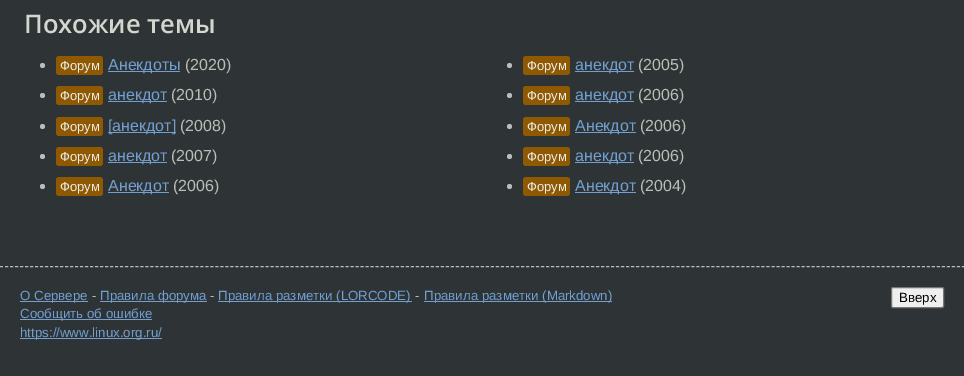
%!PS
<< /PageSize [964 376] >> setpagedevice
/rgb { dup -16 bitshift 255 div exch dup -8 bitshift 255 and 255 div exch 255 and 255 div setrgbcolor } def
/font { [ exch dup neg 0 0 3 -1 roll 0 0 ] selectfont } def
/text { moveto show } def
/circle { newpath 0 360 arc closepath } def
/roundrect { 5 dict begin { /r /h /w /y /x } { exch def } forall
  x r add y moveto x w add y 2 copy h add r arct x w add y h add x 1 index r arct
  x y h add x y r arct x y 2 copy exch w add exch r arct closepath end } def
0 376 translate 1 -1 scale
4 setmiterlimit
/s1 { /OpenSans-SemiBold 25.5 font 16#D3D7CF rgb } def
/s2 { /LiberationSans-Regular 13 font 16#EEEEEC rgb } def
/s3 { /LiberationSans-Regular 16 font 16#729FCF rgb } def
/s4 { /LiberationSans-Regular 16 font 16#BABDB6 rgb } def
/s5 { /LiberationSans-Regular 13.3 font 16#729FCF rgb } def
/s6 { /LiberationSans-Regular 13.3 font 16#BABDB6 rgb } def
/s7 { /LiberationSans-Regular 13.3 font 16#000000 rgb } def
16#2E3436 rgb
0 0 964 376 rectfill
s1
(Похожие темы) 24 33 text
16#BABDB6 rgb
42.5 65.5 2.5 circle fill
16#8F5902 rgb
56 56 47 19 3 roundrect fill
s2
(Форум) 60 70 text
16#729FCF rgb
108 71 72 1 rectfill
s3
(Анекдоты) 108 70 text
s4
(\(2020\)) 185 70 text
42.5 95.5 2.5 circle fill
16#8F5902 rgb
56 86 47 19 3 roundrect fill
s2
(Форум) 60 100 text
16#729FCF rgb
108 101 59 1 rectfill
s3
(анекдот) 108 100 text
s4
(\(2010\)) 171 100 text
42.5 126.5 2.5 circle fill
16#8F5902 rgb
56 117 47 19 3 roundrect fill
s2
(Форум) 60 131 text
16#729FCF rgb
108 132 68 1 rectfill
s3
([анекдот]) 108 131 text
s4
(\(2008\)) 180 131 text
42.5 156.5 2.5 circle fill
16#8F5902 rgb
56 147 47 19 3 roundrect fill
s2
(Форум) 60 161 text
16#729FCF rgb
108 162 59 1 rectfill
s3
(анекдот) 108 161 text
s4
(\(2007\)) 171 161 text
42.5 186.5 2.5 circle fill
16#8F5902 rgb
56 177 47 19 3 roundrect fill
s2
(Форум) 60 191 text
16#729FCF rgb
108 192 61 1 rectfill
s3
(Анекдот) 108 191 text
s4
(\(2006\)) 173 191 text
509.5 65.5 2.5 circle fill
16#8F5902 rgb
523 56 47 19 3 roundrect fill
s2
(Форум) 527 70 text
16#729FCF rgb
575 71 59 1 rectfill
s3
(анекдот) 575 70 text
s4
(\(2005\)) 638 70 text
509.5 95.5 2.5 circle fill
16#8F5902 rgb
523 86 47 19 3 roundrect fill
s2
(Форум) 527 100 text
16#729FCF rgb
575 101 59 1 rectfill
s3
(анекдот) 575 100 text
s4
(\(2006\)) 638 100 text
509.5 126.5 2.5 circle fill
16#8F5902 rgb
523 117 47 19 3 roundrect fill
s2
(Форум) 527 131 text
16#729FCF rgb
575 132 61 1 rectfill
s3
(Анекдот) 575 131 text
s4
(\(2006\)) 640 131 text
509.5 156.5 2.5 circle fill
16#8F5902 rgb
523 147 47 19 3 roundrect fill
s2
(Форум) 527 161 text
16#729FCF rgb
575 162 59 1 rectfill
s3
(анекдот) 575 161 text
s4
(\(2006\)) 638 161 text
509.5 186.5 2.5 circle fill
16#8F5902 rgb
523 177 47 19 3 roundrect fill
s2
(Форум) 527 191 text
16#729FCF rgb
575 192 61 1 rectfill
s3
(Анекдот) 575 191 text
s4
(\(2004\)) 640 191 text
[3 2.01] 0 setdash
0 266.5 moveto 964 266.5 lineto stroke
16#729FCF rgb
20 301 68 1 rectfill
s5
(О Сервере) 20 300 text
s6
(-) 92 300 text
16#729FCF rgb
100 301 107 1 rectfill
(Правила форума) 100 300 text
s6
(-) 210 300 text
16#729FCF rgb
218 301 194 1 rectfill
(Правила разметки \(LORCODE\)) 218 300 text
s6
(-) 415 300 text
16#729FCF rgb
424 301 188 1 rectfill
(Правила разметки \(Markdown\)) 424 300 text
20 319 132 1 rectfill
(Сообщить об ошибке) 20 318 text
20 338 142 1 rectfill
(https://www.linux.org.ru/) 20 337 text
16#EFEFEF rgb
891.5 287.5 52 20 1.5 roundrect gsave fill grestore
16#767676 rgb
[] 0 setdash
stroke
s7
(Вверх) 899 302 text
showpage
